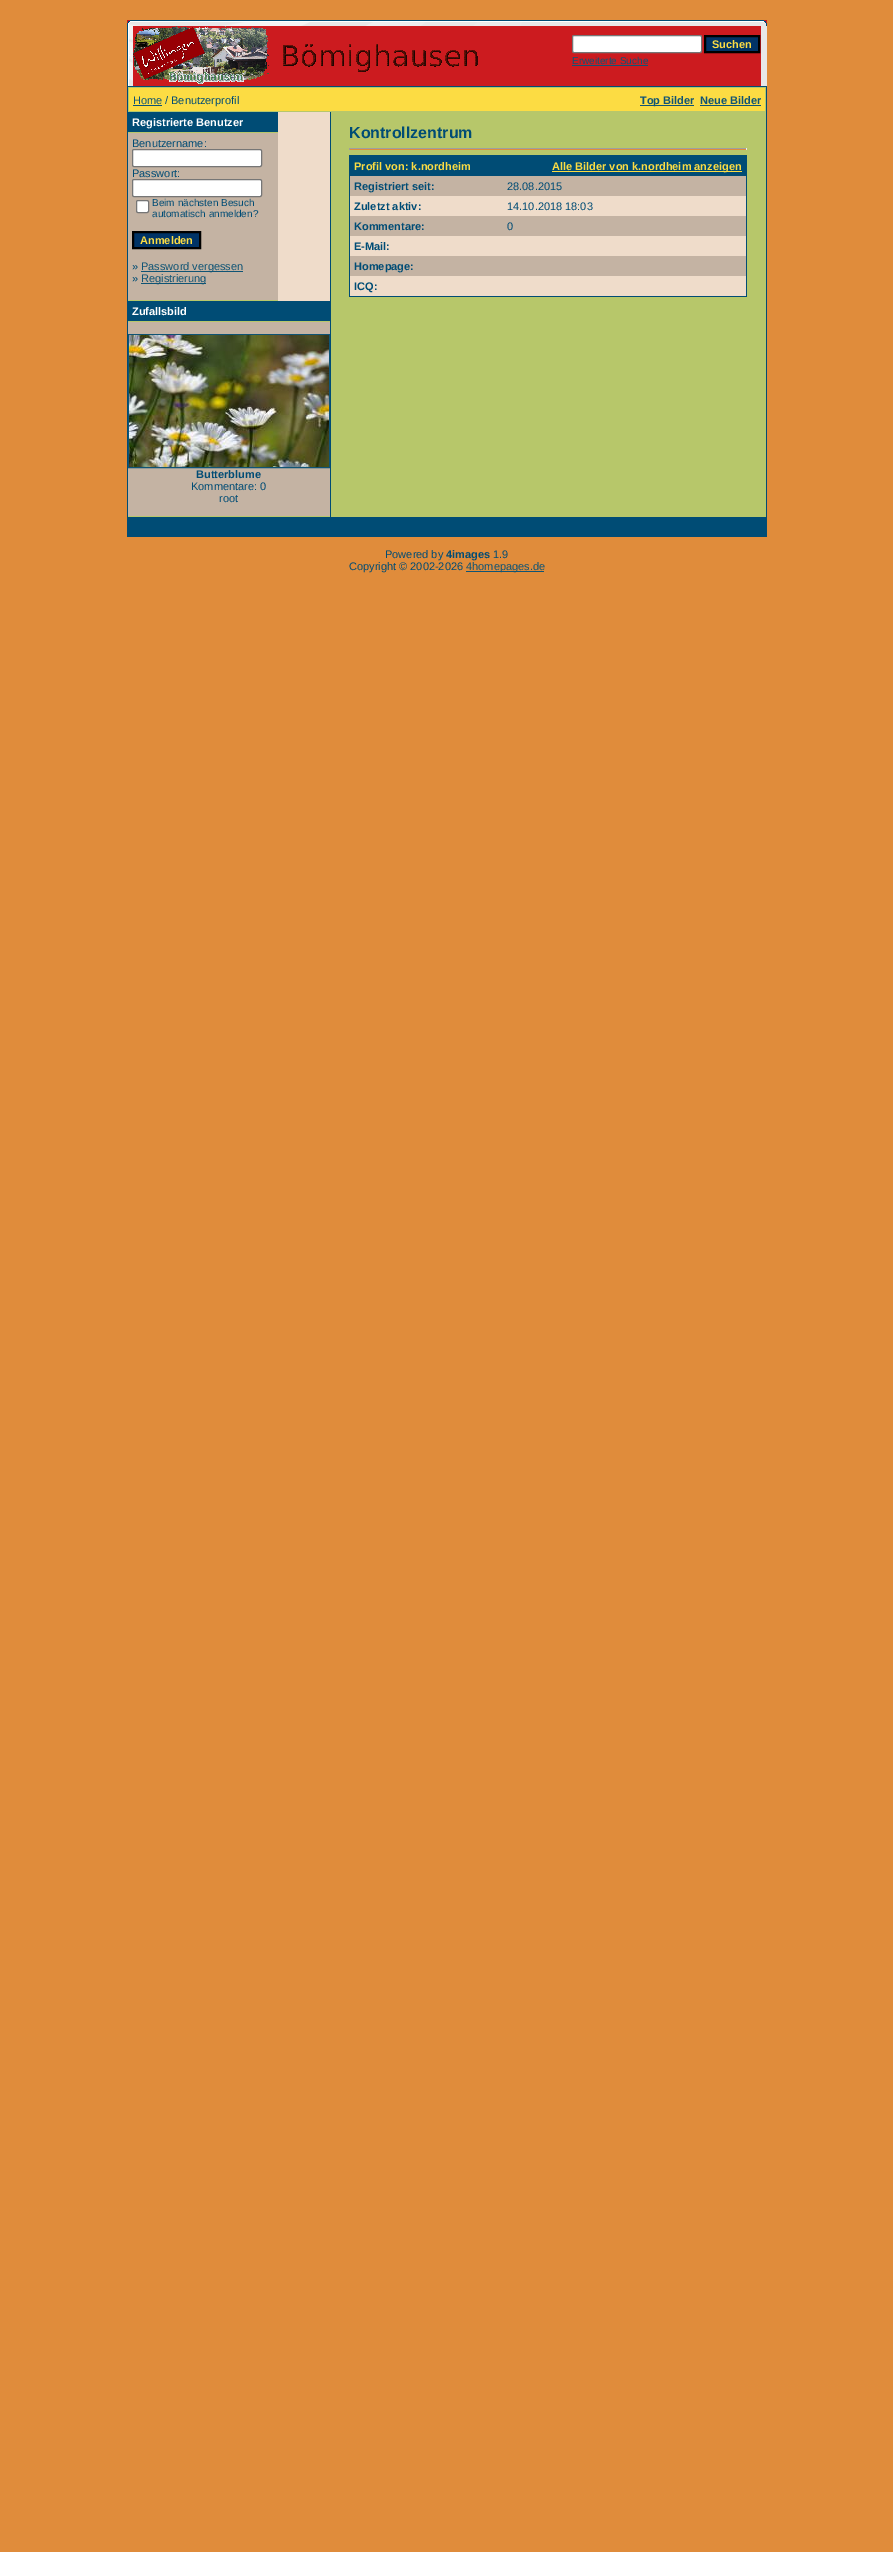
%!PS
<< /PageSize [893 2552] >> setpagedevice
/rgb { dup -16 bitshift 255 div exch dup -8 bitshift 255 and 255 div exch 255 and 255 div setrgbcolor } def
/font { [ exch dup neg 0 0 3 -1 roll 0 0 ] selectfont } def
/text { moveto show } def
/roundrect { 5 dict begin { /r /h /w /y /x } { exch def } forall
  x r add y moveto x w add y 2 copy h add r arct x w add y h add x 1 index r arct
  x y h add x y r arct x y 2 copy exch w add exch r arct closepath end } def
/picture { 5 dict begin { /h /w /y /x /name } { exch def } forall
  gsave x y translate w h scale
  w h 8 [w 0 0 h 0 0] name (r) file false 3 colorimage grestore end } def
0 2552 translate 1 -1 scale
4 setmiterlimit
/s1 { /LiberationSans-Bold 11 font 16#FCDC43 rgb } def
/s2 { /LiberationSans-Regular 10 font 16#0F5475 rgb } def
/s3 { /LiberationSans-Regular 11 font 16#0F5475 rgb } def
/s4 { /LiberationSans-Regular 11 font 16#004C75 rgb } def
/s5 { /LiberationSans-Bold 11 font 16#0F5475 rgb } def
/s6 { /LiberationSans-Bold 11 font 16#FFFFFF rgb } def
/s7 { /LiberationSans-Regular 10 font 16#004C75 rgb } def
/s8 { /LiberationSans-Bold 11 font 16#004C75 rgb } def
/s9 { /LiberationSans-Bold 16 font 16#004C75 rgb } def
16#E08C3B rgb
0 0 893 2552 rectfill
16#CC1B1F rgb
127 20 640 66 rectfill
(pic1.raw) 127 20 6 6 picture
(pic2.raw) 133 20 628 6 picture
(pic3.raw) 761 20 6 6 picture
(pic4.raw) 127 26 6 60 picture
(pic5.raw) 133 26 345 58 picture
16#FFFFFF rgb
572.5 35.5 129 17 1.5 roundrect gsave fill grestore
16#767676 rgb
stroke
16#003366 rgb
705 36 moveto 759 36 lineto 759 52 lineto 705 52 lineto closepath gsave fill grestore
16#000000 rgb
2 setlinewidth
stroke
s1
(Suchen) 712 48 text
s2
(Erweiterte Suche) 572 64 text
572 65 76 1 rectfill
16#E8E8E8 rgb
761 26 6 60 rectfill
16#004C75 rgb
127 86 640 451 rectfill
16#B7C76A rgb
128 87 638 430 rectfill
16#FCDC43 rgb
129 88 636 23 rectfill
s3
(Home) 133 104 text
133 105 29 1 rectfill
s4
(/ Benutzerprofil) 165 104 text
16#0F5475 rgb
640 105 54 1 rectfill
s5
(Top Bilder) 640 104 text
(Neue Bilder) 700 104 text
700 105 61 1 rectfill
16#EFDCCA rgb
278 112 52 189 rectfill
16#004C75 rgb
128 112 150 20 rectfill
s6
(Registrierte Benutzer) 132 126 text
16#C4B3A3 rgb
128 133 150 167 rectfill
s4
(Benutzername:) 132 147 text
16#FFFFFF rgb
132.5 149.5 129 17 1.5 roundrect gsave fill grestore
16#767676 rgb
1 setlinewidth
stroke
s4
(Passwort:) 132 177 text
16#FFFFFF rgb
132.5 179.5 129 17 1.5 roundrect gsave fill grestore
16#767676 rgb
stroke
16#FFFFFF rgb
136.5 200.5 12 12 1.5 roundrect gsave fill grestore
16#767676 rgb
stroke
s7
(Beim nächsten Besuch) 152 206 text
(automatisch anmelden?) 152 217 text
16#003366 rgb
133 232 moveto 200 232 lineto 200 248 lineto 133 248 lineto closepath gsave fill grestore
16#000000 rgb
2 setlinewidth
stroke
s1
(Anmelden) 140 244 text
s4
(») 132 270 text
16#0F5475 rgb
141 271 102 1 rectfill
(Password vergessen) 141 270 text
s4
(») 132 282 text
16#0F5475 rgb
141 283 65 1 rectfill
(Registrierung) 141 282 text
16#004C75 rgb
128 301 202 20 rectfill
s6
(Zufallsbild) 132 315 text
16#C4B3A3 rgb
128 322 202 194 rectfill
16#0F5475 rgb
1 setlinewidth
128.5 334.5 201 133 rectstroke
(pic6.raw) 129 335 200 132 picture
s8
(Butterblume) 196 478 text
s4
(Kommentare: 0) 191 490 text
(root) 219 502 text
330 112 1 405 rectfill
s9
(Kontrollzentrum) 349 138 text
16#E08C3B rgb
349 149 398 1 rectfill
16#9F9F9F rgb
349 148 398 1 rectfill
16#EEEEEE rgb
746 148 1 2 rectfill
16#9F9F9F rgb
349 148 1 2 rectfill
16#004C75 rgb
349 155 398 142 rectfill
s1
(Profil von: k.nordheim) 354 170 text
552 171 190 1 rectfill
(Alle Bilder von k.nordheim anzeigen) 552 170 text
16#C4B3A3 rgb
350 176 396 20 rectfill
s8
(Registriert seit:) 354 190 text
s4
(28.08.2015) 507 190 text
16#EFDCCA rgb
350 196 396 20 rectfill
s8
(Zuletzt aktiv:) 354 210 text
s4
(14.10.2018 18:03) 507 210 text
16#C4B3A3 rgb
350 216 396 20 rectfill
s8
(Kommentare:) 354 230 text
s4
(0) 507 230 text
16#EFDCCA rgb
350 236 396 20 rectfill
s8
(E-Mail:) 354 250 text
16#C4B3A3 rgb
350 256 396 20 rectfill
s8
(Homepage:) 354 270 text
16#EFDCCA rgb
350 276 396 20 rectfill
s8
(ICQ:) 354 290 text
s4
(Powered by) 385 558 text
s8
(4images) 446 558 text
s4
(1.9) 493 558 text
(Copyright © 2002-2026) 349 570 text
16#0F5475 rgb
466 571 78 1 rectfill
(4homepages.de) 466 570 text
showpage
